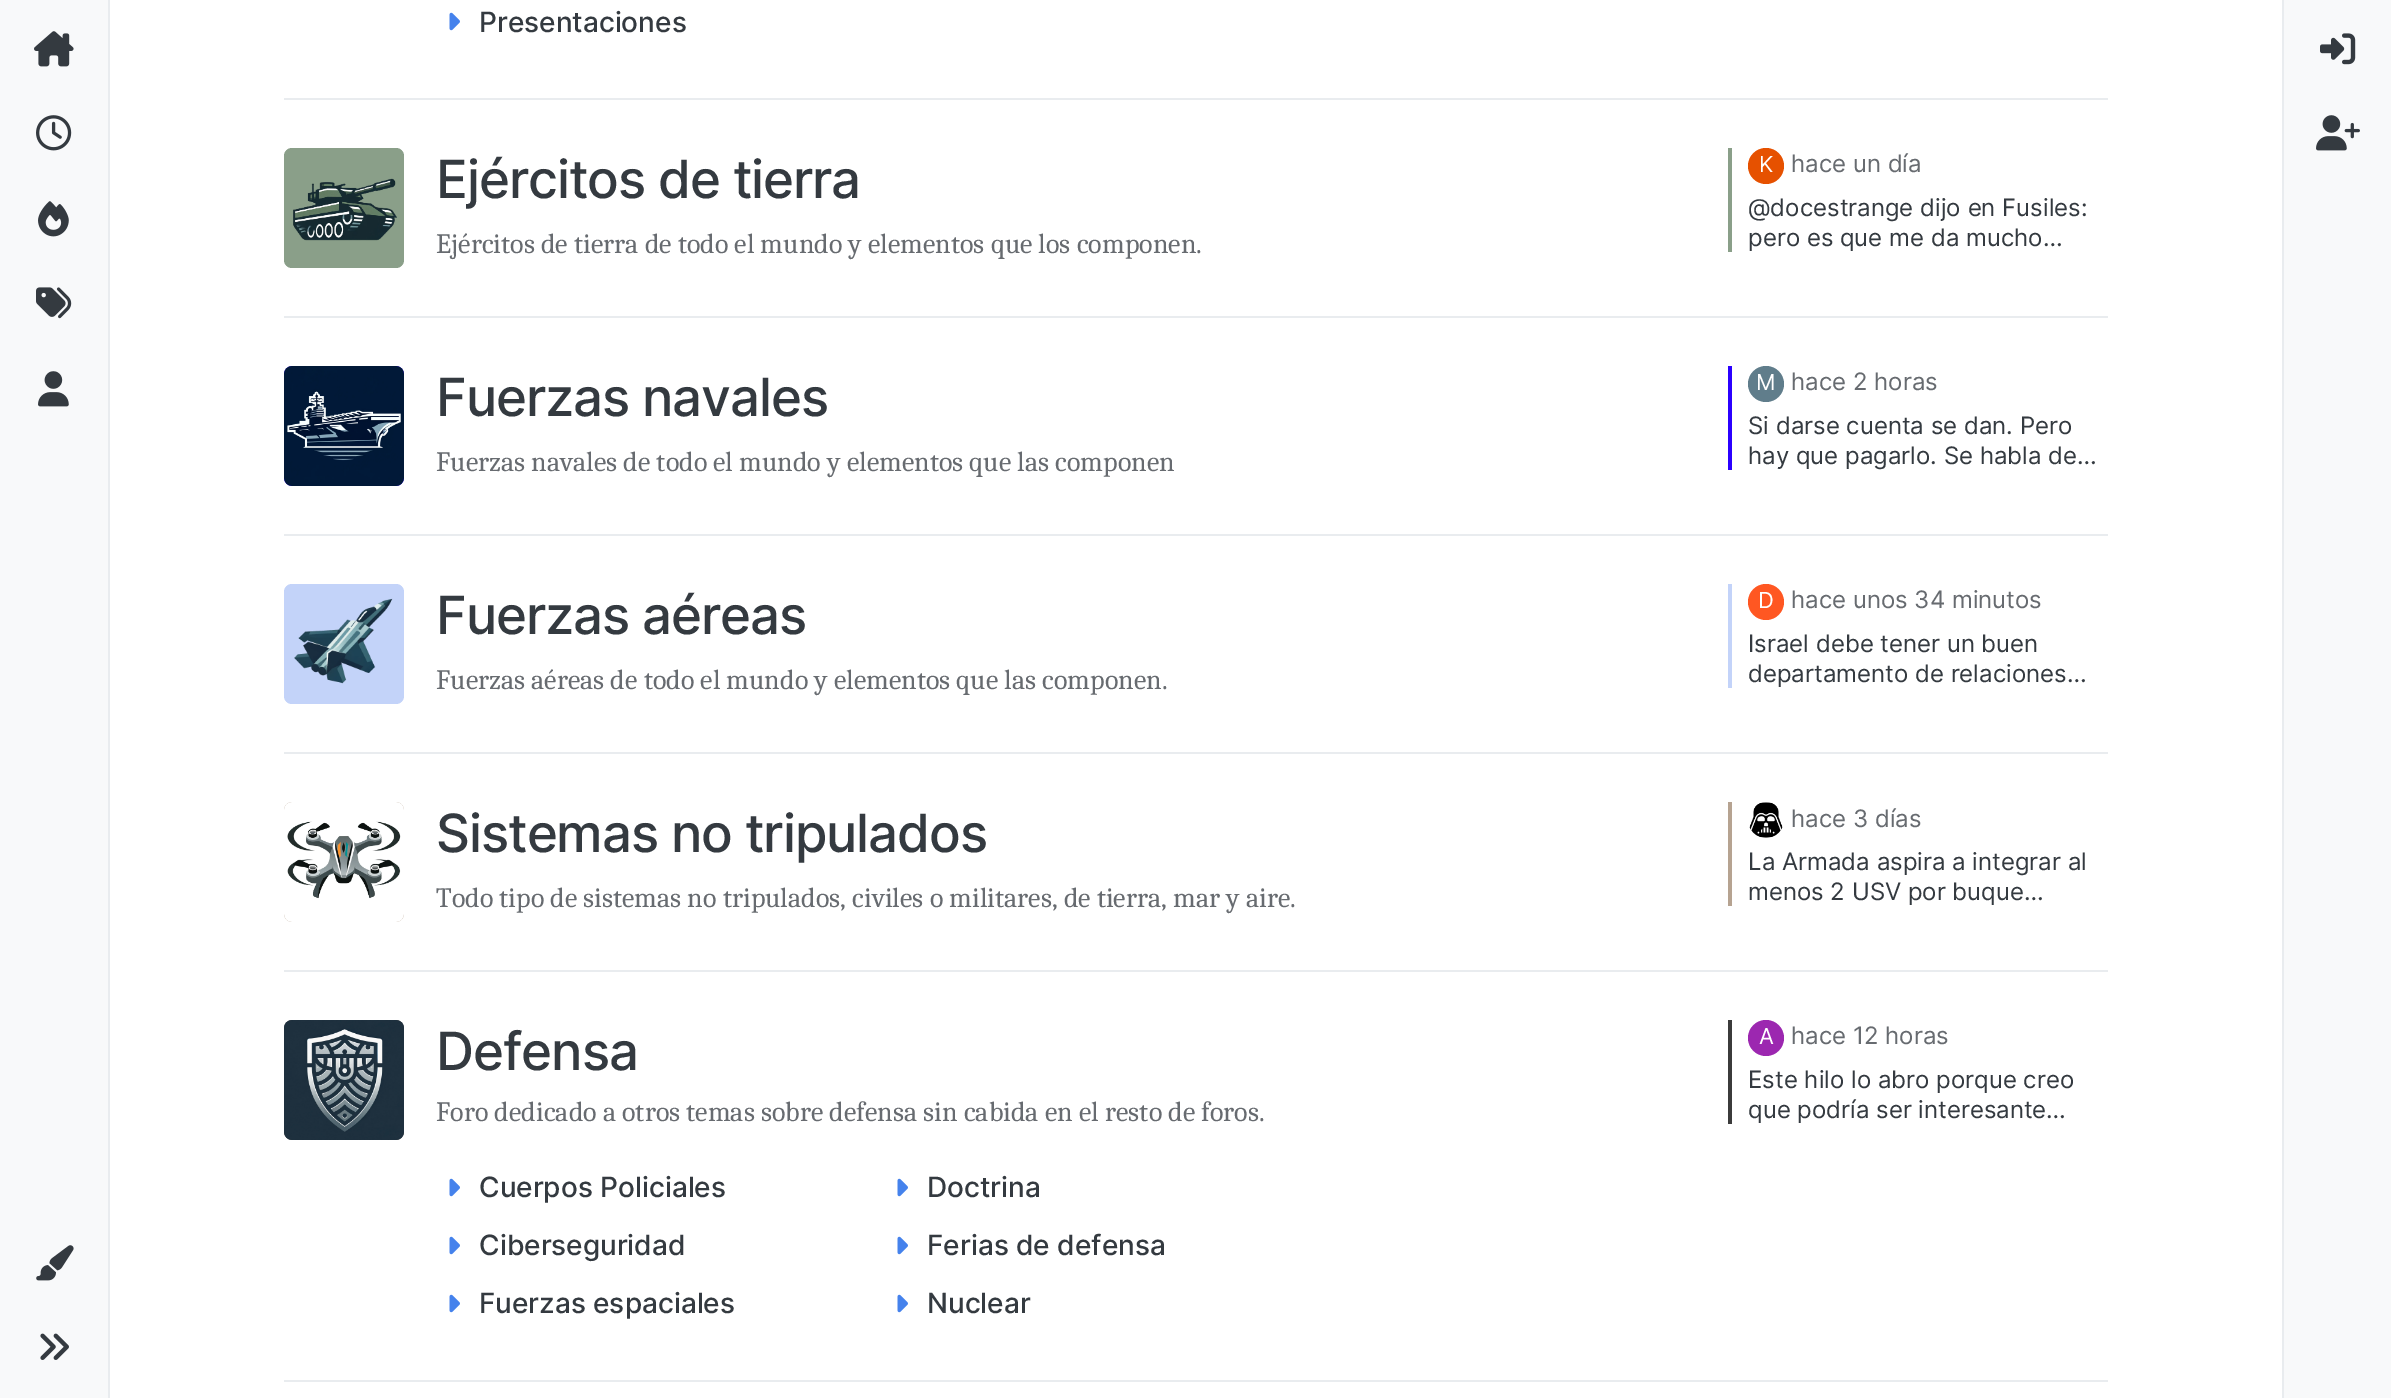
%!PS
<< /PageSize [2391 1398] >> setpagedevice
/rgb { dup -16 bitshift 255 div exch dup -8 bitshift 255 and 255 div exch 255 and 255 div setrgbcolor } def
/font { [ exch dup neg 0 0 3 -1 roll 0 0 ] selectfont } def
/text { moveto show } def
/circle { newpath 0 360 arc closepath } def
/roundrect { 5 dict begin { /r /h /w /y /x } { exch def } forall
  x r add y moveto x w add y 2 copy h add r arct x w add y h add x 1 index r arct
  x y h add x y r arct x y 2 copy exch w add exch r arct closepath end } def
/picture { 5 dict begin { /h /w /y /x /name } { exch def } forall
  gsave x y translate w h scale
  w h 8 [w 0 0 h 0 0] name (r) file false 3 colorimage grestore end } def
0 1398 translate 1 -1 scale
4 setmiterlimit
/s1 { /Inter-Medium 28 font 16#343A40 rgb } def
/s2 { /Caladea-Regular 28 font 16#676B70 rgb } def
/s3 { /Inter-Regular 22 font 16#FFFFFF rgb } def
/s4 { /Inter-Regular 24 font 16#676B70 rgb } def
/s5 { /Inter-Regular 24 font 16#343A40 rgb } def
16#FFFFFF rgb
0 0 2391 1398 rectfill
16#F8F9FA rgb
0 0 108 1398 rectfill
16#E9ECEF rgb
108 0 2 1398 rectfill
(pic1.raw) 34 31 40 36 picture
(pic2.raw) 36 115 36 36 picture
(pic3.raw) 38 201 31 36 picture
(pic4.raw) 36 287 36 32 picture
(pic5.raw) 38 371 31 36 picture
(pic6.raw) 36 1245 38 36 picture
(pic7.raw) 40 1333 29 27 picture
284 98 1824 2 rectfill
(pic8.raw) 449 12 11 19 picture
s1
(Presentaciones) 479 32 text
16#E9ECEF rgb
284 316 1824 2 rectfill
16#8A9F89 rgb
284 148 120 120 8 roundrect fill
(pic9.raw) 293 178 104 63 picture
/Inter-Medium 52.75 font
16#343A40 rgb
436 198 moveto -1.1 0 (Ejércitos de tierra) ashow
s2
(Ejércitos de tierra de todo el mundo y elementos que los componen.) 436 253 text
16#8A9F89 rgb
1728 148 4 104 rectfill
16#E65100 rgb
1766 166 18 circle fill
s3
(K) 1759 172 text
s4
(hace un día) 1791 172 text
s5
(@docestrange dijo en Fusiles:) 1748 216 text
(pero es que me da mucho…) 1748 246 text
16#E9ECEF rgb
284 534 1824 2 rectfill
16#2B00FF rgb
284 366 120 120 8 roundrect fill
(pic10.raw) 284 366 120 120 picture
/Inter-Medium 52.75 font
16#343A40 rgb
436 416 moveto -1.1 0 (Fuerzas navales) ashow
s2
(Fuerzas navales de todo el mundo y elementos que las componen) 436 471 text
16#2B00FF rgb
1728 366 4 104 rectfill
16#607D8B rgb
1766 384 18 circle fill
s3
(M) 1756 390 text
s4
(hace 2 horas) 1791 390 text
s5
(Si darse cuenta se dan. Pero) 1748 434 text
(hay que pagarlo. Se habla de…) 1748 464 text
16#E9ECEF rgb
284 752 1824 2 rectfill
16#C3D3F9 rgb
284 584 120 120 8 roundrect fill
(pic11.raw) 294 598 99 86 picture
/Inter-Medium 52.75 font
16#343A40 rgb
436 634 moveto -1.1 0 (Fuerzas aéreas) ashow
s2
(Fuerzas aéreas de todo el mundo y elementos que las componen.) 436 689 text
16#C3D3F9 rgb
1728 584 4 104 rectfill
16#FF5722 rgb
1766 602 18 circle fill
s3
(D) 1758 608 text
s4
(hace unos 34 minutos) 1791 608 text
s5
(Israel debe tener un buen) 1748 652 text
(departamento de relaciones…) 1748 682 text
16#E9ECEF rgb
284 970 1824 2 rectfill
16#B6A391 rgb
284 802 120 120 8 roundrect fill
(pic12.raw) 284 802 120 120 picture
/Inter-Medium 52.75 font
16#343A40 rgb
436 852 moveto -1.1 0 (Sistemas no tripulados) ashow
s2
(Todo tipo de sistemas no tripulados, civiles o militares, de tierra, mar y aire.) 436 907 text
16#B6A391 rgb
1728 802 4 104 rectfill
(pic13.raw) 1749 802 34 36 picture
s4
(hace 3 días) 1791 827 text
s5
(La Armada aspira a integrar al) 1748 870 text
(menos 2 USV por buque…) 1748 900 text
16#E9ECEF rgb
284 1380 1824 2 rectfill
16#3B3B3B rgb
284 1020 120 120 8 roundrect fill
(pic14.raw) 284 1020 120 120 picture
/Inter-Medium 52.75 font
16#343A40 rgb
436 1070 moveto -1.1 0 (Defensa) ashow
s2
(Foro dedicado a otros temas sobre defensa sin cabida en el resto de foros.) 436 1121 text
(pic8.raw) 449 1178 11 19 picture
s1
(Cuerpos Policiales) 479 1197 text
(pic8.raw) 897 1178 11 19 picture
(Doctrina) 927 1197 text
(pic8.raw) 449 1236 11 19 picture
(Ciberseguridad) 479 1255 text
(pic8.raw) 897 1236 11 19 picture
(Ferias de defensa) 927 1255 text
(pic8.raw) 449 1294 11 19 picture
(Fuerzas espaciales) 479 1313 text
(pic8.raw) 897 1294 11 19 picture
(Nuclear) 927 1313 text
16#3B3B3B rgb
1728 1020 4 104 rectfill
16#9C27B0 rgb
1766 1038 18 circle fill
s3
(A) 1759 1044 text
s4
(hace 12 horas) 1791 1044 text
s5
(Este hilo lo abro porque creo) 1748 1088 text
(que podría ser interesante…) 1748 1118 text
16#F8F9FA rgb
2284 0 107 1398 rectfill
16#E9ECEF rgb
2282 0 2 1398 rectfill
(pic15.raw) 2320 33 36 32 picture
(pic16.raw) 2316 115 44 36 picture
showpage
